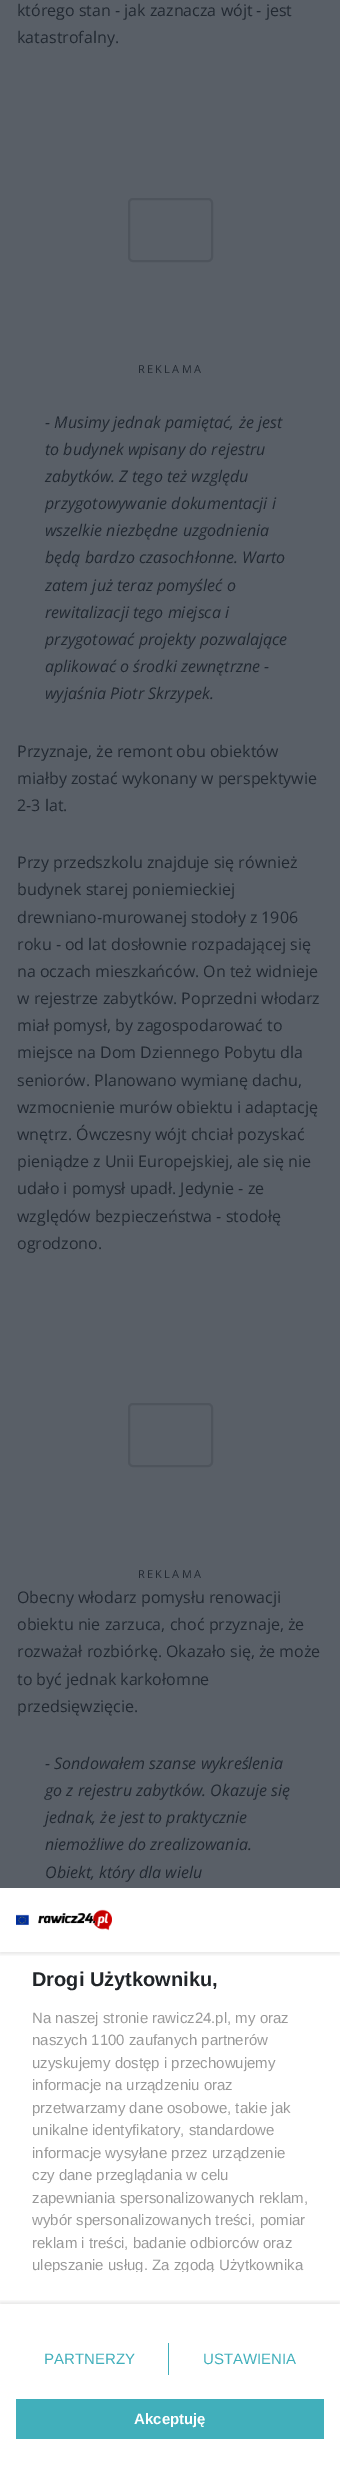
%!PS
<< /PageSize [340 2484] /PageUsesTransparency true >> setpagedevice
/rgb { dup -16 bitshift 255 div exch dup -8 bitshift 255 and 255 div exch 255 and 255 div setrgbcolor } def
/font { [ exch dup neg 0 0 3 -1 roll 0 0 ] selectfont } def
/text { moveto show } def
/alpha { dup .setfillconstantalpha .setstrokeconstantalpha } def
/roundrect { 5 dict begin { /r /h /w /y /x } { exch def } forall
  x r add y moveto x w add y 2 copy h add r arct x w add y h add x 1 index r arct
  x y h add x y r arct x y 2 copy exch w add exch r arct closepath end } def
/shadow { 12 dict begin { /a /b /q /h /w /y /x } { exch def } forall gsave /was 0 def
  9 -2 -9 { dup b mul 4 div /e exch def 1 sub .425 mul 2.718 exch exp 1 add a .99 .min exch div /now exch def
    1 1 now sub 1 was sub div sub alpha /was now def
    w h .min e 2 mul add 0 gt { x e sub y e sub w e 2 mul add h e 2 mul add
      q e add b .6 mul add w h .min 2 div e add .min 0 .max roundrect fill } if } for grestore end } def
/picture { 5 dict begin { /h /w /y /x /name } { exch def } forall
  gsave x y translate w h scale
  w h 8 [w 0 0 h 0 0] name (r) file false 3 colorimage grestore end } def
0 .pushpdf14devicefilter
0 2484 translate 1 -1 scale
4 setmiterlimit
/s1 { /OpenSans-Regular 16 font 16#212831 rgb } def
/s2 { /OpenSans-Italic 16 font 16#212831 rgb } def
/s3 { /LiberationSans-Bold 20 font 16#212529 rgb } def
/s4 { /LiberationSans-Regular 15 font 16#999999 rgb } def
/s5 { /LiberationSans-Regular 15 font 16#41AFBB rgb } def
/s6 { /LiberationSans-Bold 15 font 16#FFFFFF rgb } def
16#595F67 rgb
0 0 340 2484 rectfill
s1
(którego stan - jak zaznacza wójt - jest) 17 16 text
(katastrofalny.) 17 43 text
16#4E545C rgb
2 setlinewidth
129 199 83 62 4 roundrect stroke
/OpenSans-Regular 11 font
16#212831 rgb
138 373 moveto 2.25 0 (REKLAMA) ashow
s2
(- Musimy jednak pamiętać, że jest) 45 428 text
(to budynek wpisany do rejestru) 45 455 text
(zabytków. Z tego też względu) 45 482 text
(przygotowywanie dokumentacji i) 45 509 text
(wszelkie niezbędne uzgodnienia) 45 536 text
(będą bardzo czasochłonne. Warto) 45 563 text
(zatem już teraz pomyśleć o) 45 591 text
(rewitalizacji tego miejsca i) 45 618 text
(przygotować projekty pozwalające) 45 645 text
(aplikować o środki zewnętrzne -) 45 672 text
(wyjaśnia Piotr Skrzypek.) 45 699 text
s1
(Przyznaje, że remont obu obiektów) 17 757 text
(miałby zostać wykonany w perspektywie) 17 784 text
(2-3 lat.) 17 811 text
(Przy przedszkolu znajduje się również) 17 868 text
(budynek starej poniemieckiej) 17 895 text
(drewniano-murowanej stodoły z 1906) 17 923 text
(roku - od lat dosłownie rozpadającej się) 17 950 text
(na oczach mieszkańców. On też widnieje) 17 977 text
(w rejestrze zabytków. Poprzedni włodarz) 17 1004 text
(miał pomysł, by zagospodarować to) 17 1031 text
(miejsce na Dom Dziennego Pobytu dla) 17 1058 text
(seniorów. Planowano wymianę dachu,) 17 1086 text
(wzmocnienie murów obiektu i adaptację) 17 1113 text
(wnętrz. Ówczesny wójt chciał pozyskać) 17 1140 text
(pieniądze z Unii Europejskiej, ale się nie) 17 1167 text
(udało i pomysł upadł. Jedynie - ze) 17 1194 text
(względów bezpieczeństwa - stodołę) 17 1222 text
(ogrodzono.) 17 1249 text
16#4E545C rgb
129 1404 83 62 4 roundrect stroke
/OpenSans-Regular 11 font
16#212831 rgb
138 1578 moveto 2.25 0 (REKLAMA) ashow
s1
(Obecny włodarz pomysłu renowacji) 17 1603 text
(obiektu nie zarzuca, choć przyznaje, że) 17 1630 text
(rozważał rozbiórkę. Okazało się, że może) 17 1657 text
(to być jednak karkołomne) 17 1685 text
(przedsięwzięcie.) 17 1712 text
s2
(- Sondowałem szanse wykreślenia) 45 1769 text
(go z rejestru zabytków. Okazuje się) 45 1796 text
(jednak, że jest to praktycznie) 45 1823 text
(niemożliwe do zrealizowania.) 45 1850 text
(Obiekt, który dla wielu) 45 1878 text
16#FFFFFF rgb
0 1888 340 596 rectfill
gsave
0 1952 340 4 rectclip
16#000000 rgb
0 1890 340 64 0 2 0.1 shadow
grestore
(pic1.raw) 16 1909 96 22 picture
s3
(Drogi Użytkowniku,) 32 1986 text
s4
(Na naszej stronie rawicz24.pl, my oraz) 32 2023 text
(naszych 1100 zaufanych partnerów) 32 2045 text
(uzyskujemy dostęp i przechowujemy) 32 2068 text
(informacje na urządzeniu oraz) 32 2090 text
(przetwarzamy dane osobowe, takie jak) 32 2113 text
(unikalne identyfikatory, standardowe) 32 2135 text
(informacje wysyłane przez urządzenie) 32 2158 text
(czy dane przeglądania w celu) 32 2180 text
(zapewniania spersonalizowanych reklam,) 32 2203 text
(wybór spersonalizowanych treści, pomiar) 32 2225 text
(reklam i treści, badanie odbiorców oraz) 32 2248 text
gsave
0 1952 340 320 rectclip
(ulepszanie usług. Za zgodą Użytkownika) 32 2270 text
grestore
gsave
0 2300 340 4 rectclip
16#000000 rgb
0 2302 340 159 0 2 0.1 shadow
grestore
s5
(PARTNERZY) 44 2364 text
168 2343 1 32 rectfill
(USTAWIENIA) 203 2364 text
16 2399 308 40 rectfill
s6
(Akceptuję) 134 2424 text
.poppdf14devicefilter showpage
